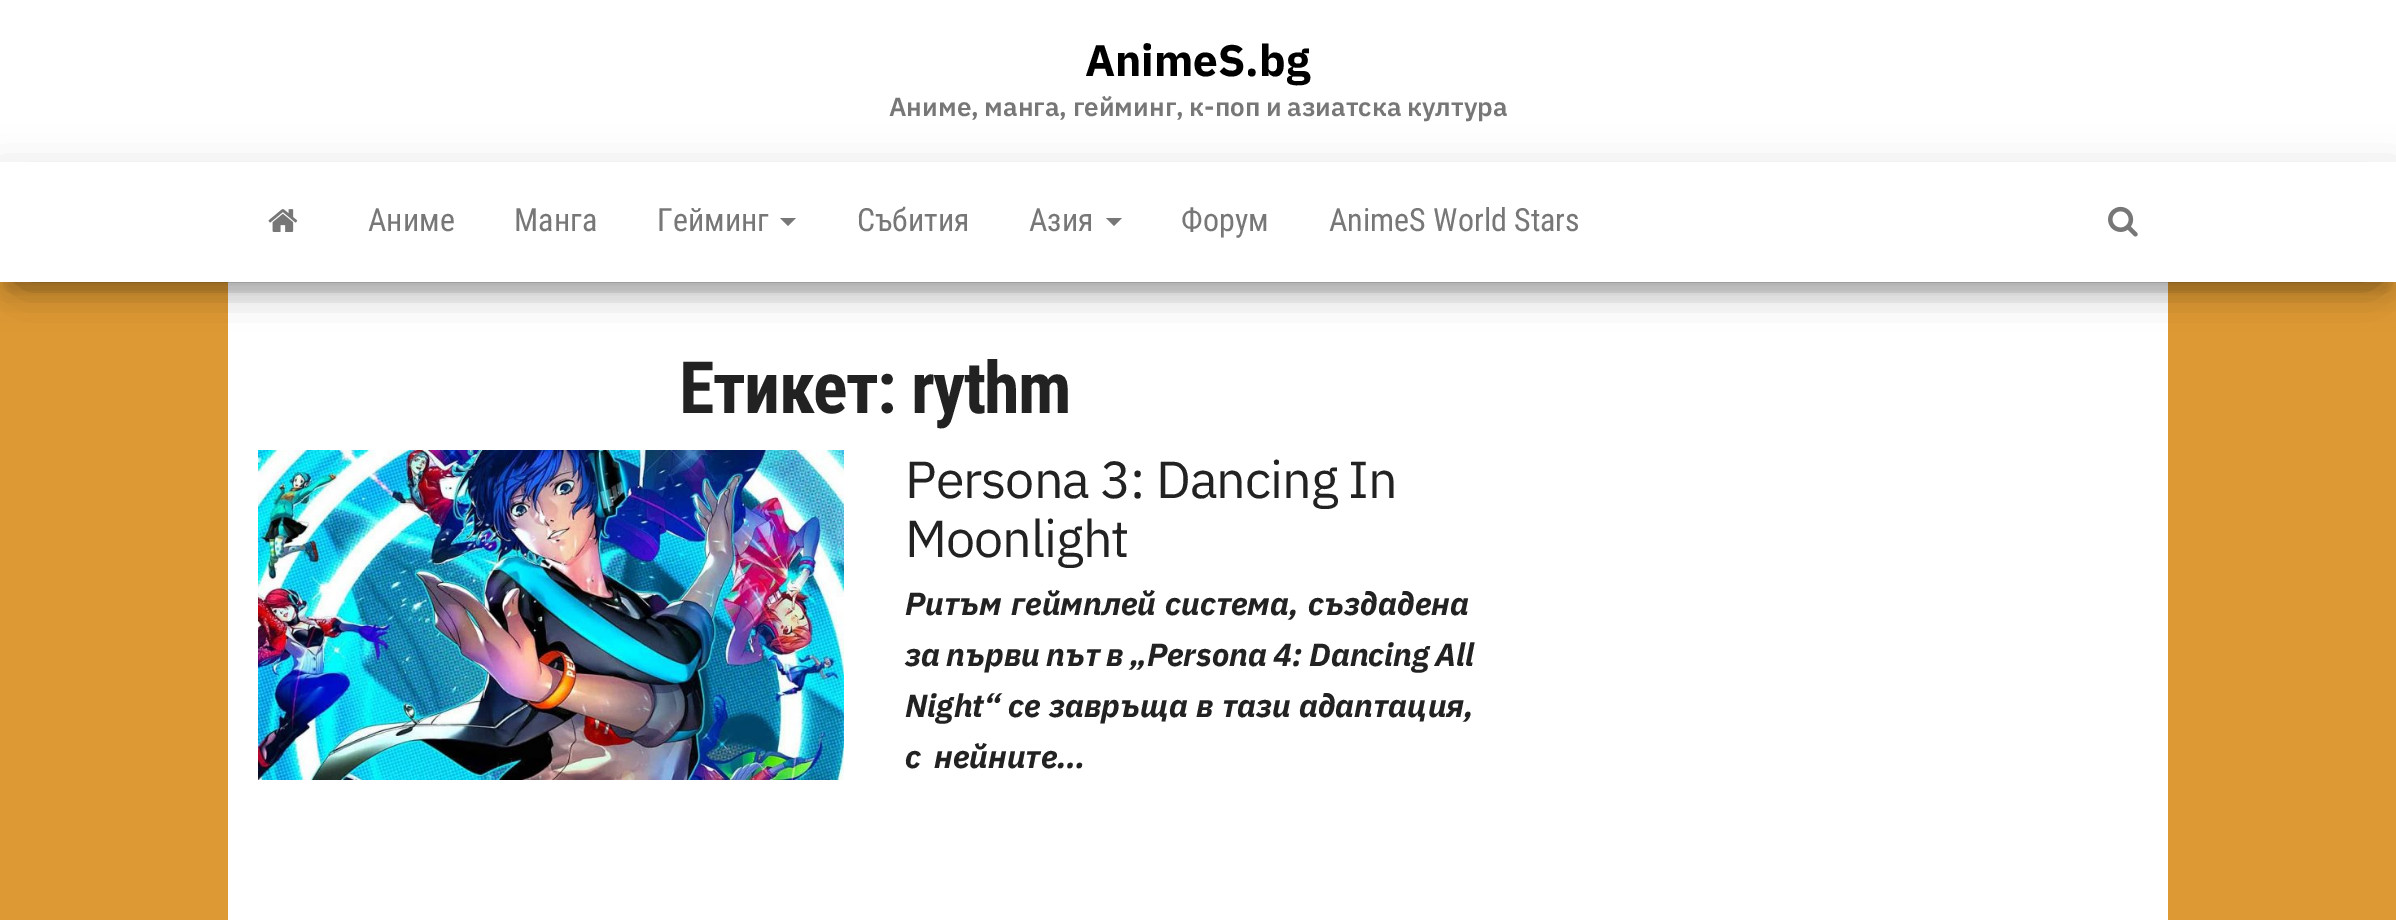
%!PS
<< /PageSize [2396 920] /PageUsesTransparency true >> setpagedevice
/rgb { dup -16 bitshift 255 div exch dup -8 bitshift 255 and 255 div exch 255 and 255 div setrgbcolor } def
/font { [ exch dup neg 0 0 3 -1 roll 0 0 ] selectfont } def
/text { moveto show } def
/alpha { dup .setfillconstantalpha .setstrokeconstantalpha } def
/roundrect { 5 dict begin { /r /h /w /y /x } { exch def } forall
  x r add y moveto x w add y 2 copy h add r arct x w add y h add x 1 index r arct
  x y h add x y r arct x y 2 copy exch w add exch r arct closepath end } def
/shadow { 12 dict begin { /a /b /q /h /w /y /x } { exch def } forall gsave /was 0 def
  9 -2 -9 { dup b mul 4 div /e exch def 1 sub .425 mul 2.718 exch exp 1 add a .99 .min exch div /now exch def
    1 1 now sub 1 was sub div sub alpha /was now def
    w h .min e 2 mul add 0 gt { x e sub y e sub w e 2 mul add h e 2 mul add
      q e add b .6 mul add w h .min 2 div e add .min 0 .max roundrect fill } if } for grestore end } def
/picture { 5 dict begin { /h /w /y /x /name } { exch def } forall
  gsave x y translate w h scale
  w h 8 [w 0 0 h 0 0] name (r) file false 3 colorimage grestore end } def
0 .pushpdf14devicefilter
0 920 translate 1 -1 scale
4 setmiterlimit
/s1 { /IBMPlexSans-Bold 44 font 16#000000 rgb } def
/s2 { /RobotoCondensed-Regular 32 font 16#777777 rgb } def
16#DD9933 rgb
0 0 2396 920 rectfill
16#FFFFFF rgb
0 0 2396 162 rectfill
s1
(AnimeS.bg) 1085 76 text
16#FFFFFF rgb
228 282 1940 638 rectfill
16#000000 rgb
0 168 2396 120 0 20 0.12 shadow
/IBMPlexSans-SemiBold 26 font
16#777777 rgb
889 116 moveto -0.5 0 32 (Аниме, манга, гейминг, к-поп и азиатска култура) widthshow
16#000000 rgb
10 188 2376 100 0 10 0.2 shadow
24 206 2348 72 0 20 0.42 shadow
16#FFFFFF rgb
0 162 2396 120 rectfill
(pic1.raw) 268 209 30 23 picture
s2
(Аниме) 368 231 text
(Манга) 514 231 text
(Гейминг) 657 231 text
780 218 moveto 796 218 lineto 788 226 lineto closepath fill
(Събития) 857 231 text
(Азия) 1029 231 text
1106 218 moveto 1122 218 lineto 1114 226 lineto closepath fill
(Форум) 1181 231 text
(AnimeS World Stars) 1329 231 text
(pic2.raw) 2108 206 30 31 picture
/RobotoCondensed-Bold 72 font
16#222222 rgb
679 413 moveto -1.5 0 (Етикет: rythm) ashow
(pic3.raw) 258 450 586 330 picture
/IBMPlexSans-Regular 52 font
905 498 moveto -1 0 (Persona 3: Dancing In) ashow
905 557 moveto -1 0 (Moonlight) ashow
/IBMPlexSans-BoldItalic 32 font
905 615 moveto 2 0 32 (Ритъм геймплей система, създадена) widthshow
905 666 moveto -1.5 0 32 (за първи път в „Persona 4: Dancing All) widthshow
905 717 moveto 0.5 0 32 (Night“ се завръща в тази адаптация,) widthshow
905 768 moveto 6 0 32 (с нейните…) widthshow
.poppdf14devicefilter showpage
